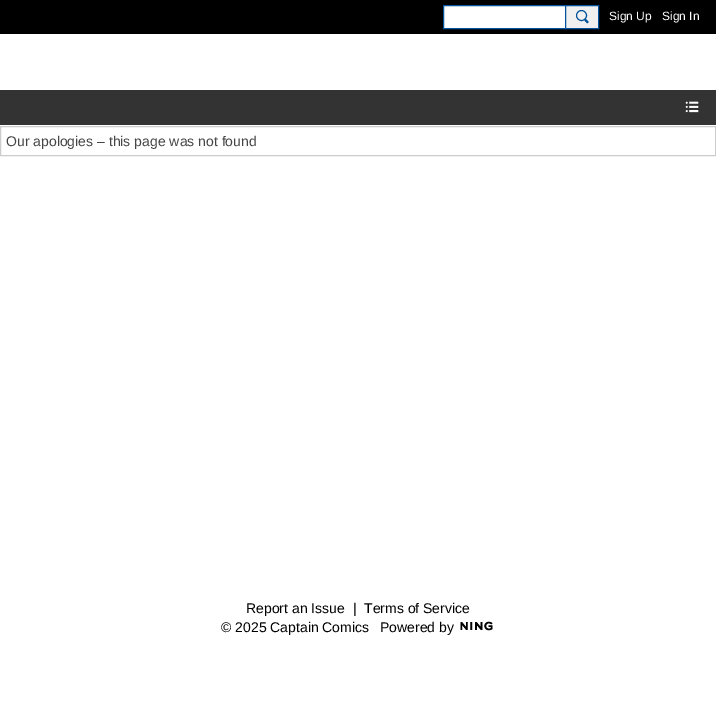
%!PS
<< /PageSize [716 721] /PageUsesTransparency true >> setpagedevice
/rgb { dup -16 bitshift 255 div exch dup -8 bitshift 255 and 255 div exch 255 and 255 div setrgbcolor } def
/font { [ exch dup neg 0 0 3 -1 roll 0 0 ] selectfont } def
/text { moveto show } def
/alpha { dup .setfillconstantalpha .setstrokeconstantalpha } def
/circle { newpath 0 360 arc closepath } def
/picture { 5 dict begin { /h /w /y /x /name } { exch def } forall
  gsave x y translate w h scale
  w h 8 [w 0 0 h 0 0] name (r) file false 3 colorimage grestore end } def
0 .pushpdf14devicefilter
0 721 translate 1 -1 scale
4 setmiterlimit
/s1 { /LiberationSans-Regular 12 font 16#FFFFFF rgb } def
/s2 { /LiberationSans-Regular 14 font 16#454545 rgb } def
/s3 { /LiberationSans-Regular 14 font 16#000000 rgb } def
16#FFFFFF rgb
0 0 716 721 rectfill
16#000000 rgb
0 0 716 34 rectfill
16#FFFFFF rgb
443.5 5.5 moveto 565.5 5.5 lineto 565.5 28.5 lineto 443.5 28.5 lineto closepath gsave fill grestore
16#04539C rgb
stroke
0.94 alpha
16#FFFFFF rgb
565.5 5.5 moveto 598.5 5.5 lineto 598.5 28.5 lineto 565.5 28.5 lineto closepath fill
1 alpha
16#04539C rgb
565.5 5.5 moveto 598.5 5.5 lineto 598.5 28.5 lineto 565.5 28.5 lineto closepath stroke
581.5 15.5 5 circle stroke
586 19 moveto 588.5 21.5 lineto 588.5 22 588.5 22.5 588 23 curveto 587 24 585.5 21.5 584.5 20.5 curveto 584 19.5 585 18.5 586 19 curveto closepath fill
s1
(Sign Up) 609 20 text
(Sign In) 662 20 text
16#333333 rgb
0 90 716 35 rectfill
(pic1.raw) 685 101 14 12 picture
16#CCCCCC rgb
0.5 126.5 715 29 rectstroke
s2
(Our apologies – this page was not found) 6 146 text
s3
(Report an Issue) 246 613 text
(|) 353 613 text
(Terms of Service) 364 613 text
(© 2025 Captain Comics) 221 632 text
(Powered by) 380 632 text
(pic2.raw) 460 621 33 10 picture
.poppdf14devicefilter showpage
